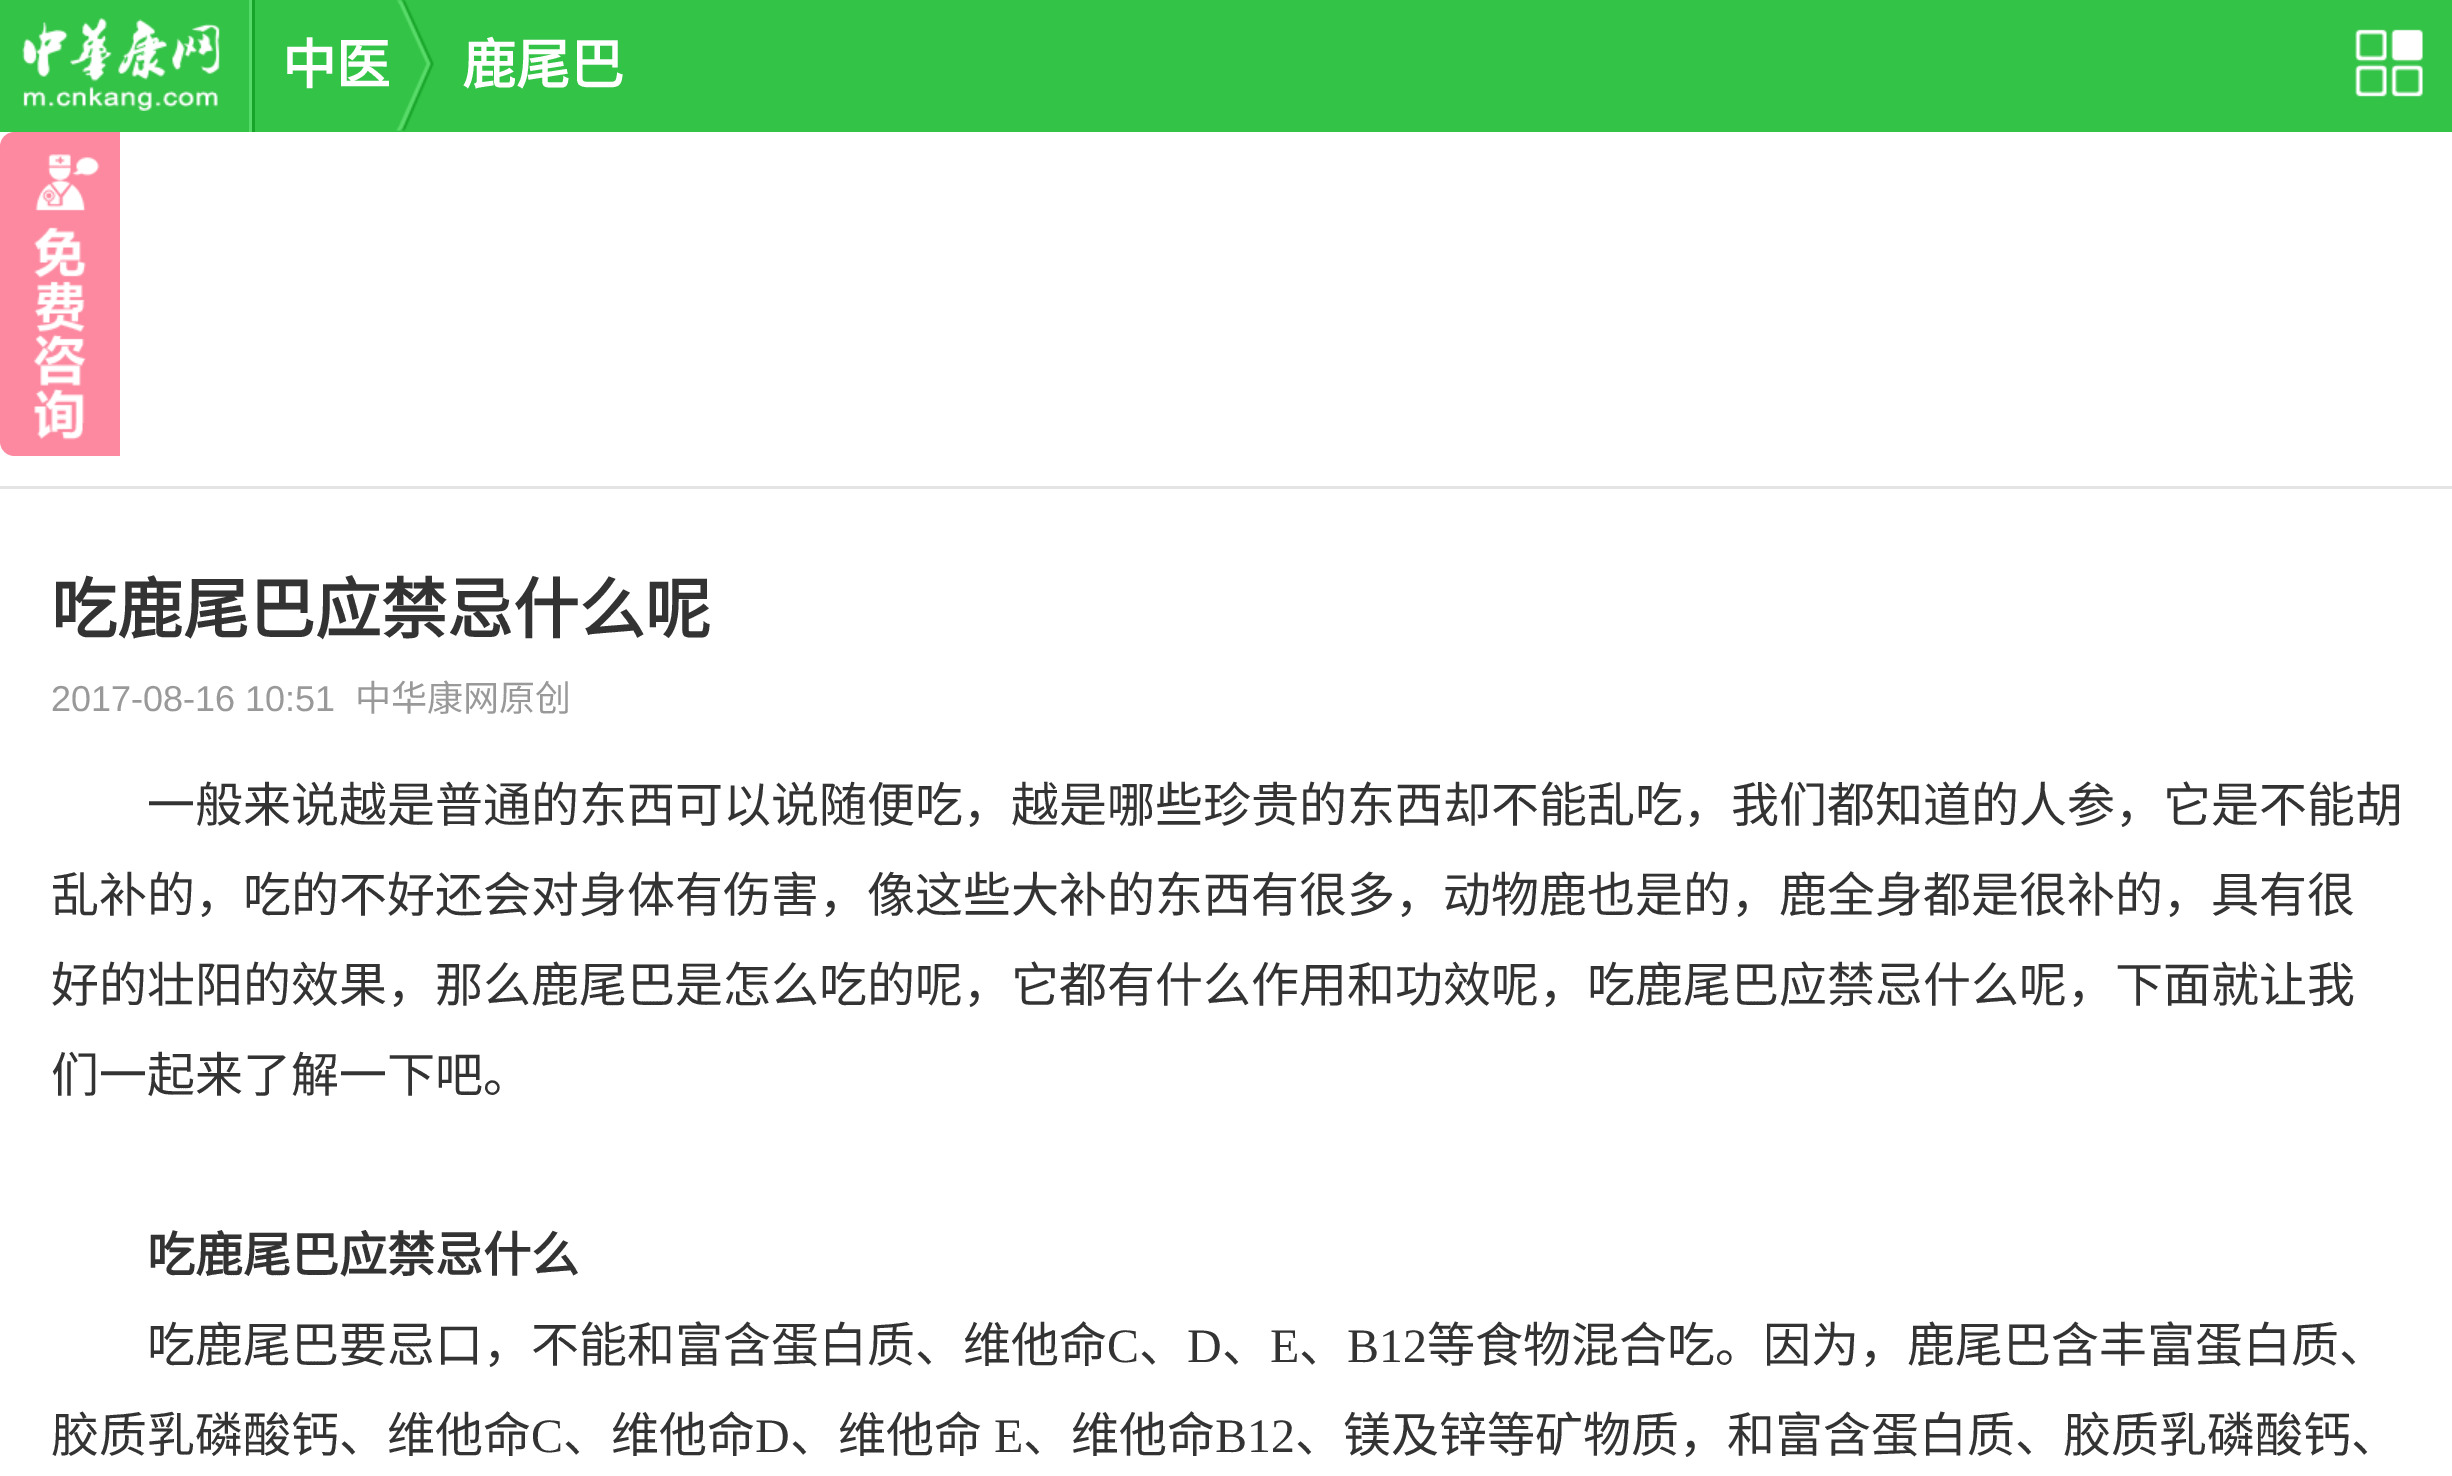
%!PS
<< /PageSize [2452 1476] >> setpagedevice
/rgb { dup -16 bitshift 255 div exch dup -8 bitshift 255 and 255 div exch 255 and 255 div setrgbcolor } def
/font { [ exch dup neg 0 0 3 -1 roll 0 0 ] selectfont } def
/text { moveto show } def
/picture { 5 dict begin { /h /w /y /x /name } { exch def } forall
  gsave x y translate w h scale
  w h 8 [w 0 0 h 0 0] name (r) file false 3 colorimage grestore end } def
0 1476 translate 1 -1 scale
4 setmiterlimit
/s1 { /NotoSansCJKSC-Bold 54 font 16#FFFFFF rgb } def
/s2 { /NotoSansCJKSC-Bold 66 font 16#333333 rgb } def
/s3 { /LiberationSans-Regular 36 font 16#999999 rgb } def
/s4 { /NotoSansCJKSC-Regular 36 font 16#999999 rgb } def
/s5 { /NotoSansCJKSC-Regular 48 font 16#333333 rgb } def
/s6 { /NotoSansCJKSC-Bold 48 font 16#333333 rgb } def
/s7 { /LiberationSerif-Regular 48 font 16#333333 rgb } def
16#FFFFFF rgb
0 0 2452 1476 rectfill
16#33C346 rgb
0 0 2452 132 rectfill
(pic1.raw) 22 18 198 93 picture
16#18A42A rgb
252 0 3 132 rectfill
16#56DA67 rgb
249 0 3 132 rectfill
s1
(中医) 282 84 text
(pic2.raw) 396 0 38 131 picture
(鹿尾巴) 462 84 text
(pic3.raw) 2355 29 68 68 picture
16#FD89A0 rgb
15 132 moveto 120 132 lineto 120 456 lineto 15 456 lineto 6.5 456 0 449.5 0 441 curveto 0 147 lineto 0 138.5 6.5 132 15 132 curveto closepath fill
(pic4.raw) 33 154 67 286 picture
16#E4E4E4 rgb
0 486 2452 3 rectfill
s2
(吃鹿尾巴应禁忌什么呢) 51 633 text
s3
(2017-08-16 10:51) 51 711 text
s4
(中华康网原创) 355 711 text
s5
(一般来说越是普通的东西可以说随便吃，越是哪些珍贵的东西却不能乱吃，我们都知道的人参，它是不能胡) 147 822 text
(乱补的，吃的不好还会对身体有伤害，像这些大补的东西有很多，动物鹿也是的，鹿全身都是很补的，具有很) 51 912 text
(好的壮阳的效果，那么鹿尾巴是怎么吃的呢，它都有什么作用和功效呢，吃鹿尾巴应禁忌什么呢，下面就让我) 51 1002 text
(们一起来了解一下吧。) 51 1092 text
s6
(吃鹿尾巴应禁忌什么) 147 1272 text
s5
(吃鹿尾巴要忌口，不能和富含蛋白质、维他命) 147 1362 text
s7
(C) 1107 1362 text
s5
(、) 1139 1362 text
s7
(D) 1187 1362 text
s5
(、) 1222 1362 text
s7
(E) 1270 1362 text
s5
(、) 1299 1362 text
s7
(B12) 1347 1362 text
s5
(等食物混合吃。因为，鹿尾巴含丰富蛋白质、) 1427 1362 text
(胶质乳磷酸钙、维他命) 51 1452 text
s7
(C) 531 1452 text
s5
(、维他命) 563 1452 text
s7
(D) 755 1452 text
s5
(、维他命) 790 1452 text
s7
(E) 994 1452 text
s5
(、维他命) 1023 1452 text
s7
(B12) 1215 1452 text
s5
(、镁及锌等矿物质，和富含蛋白质、胶质乳磷酸钙、) 1295 1452 text
showpage
